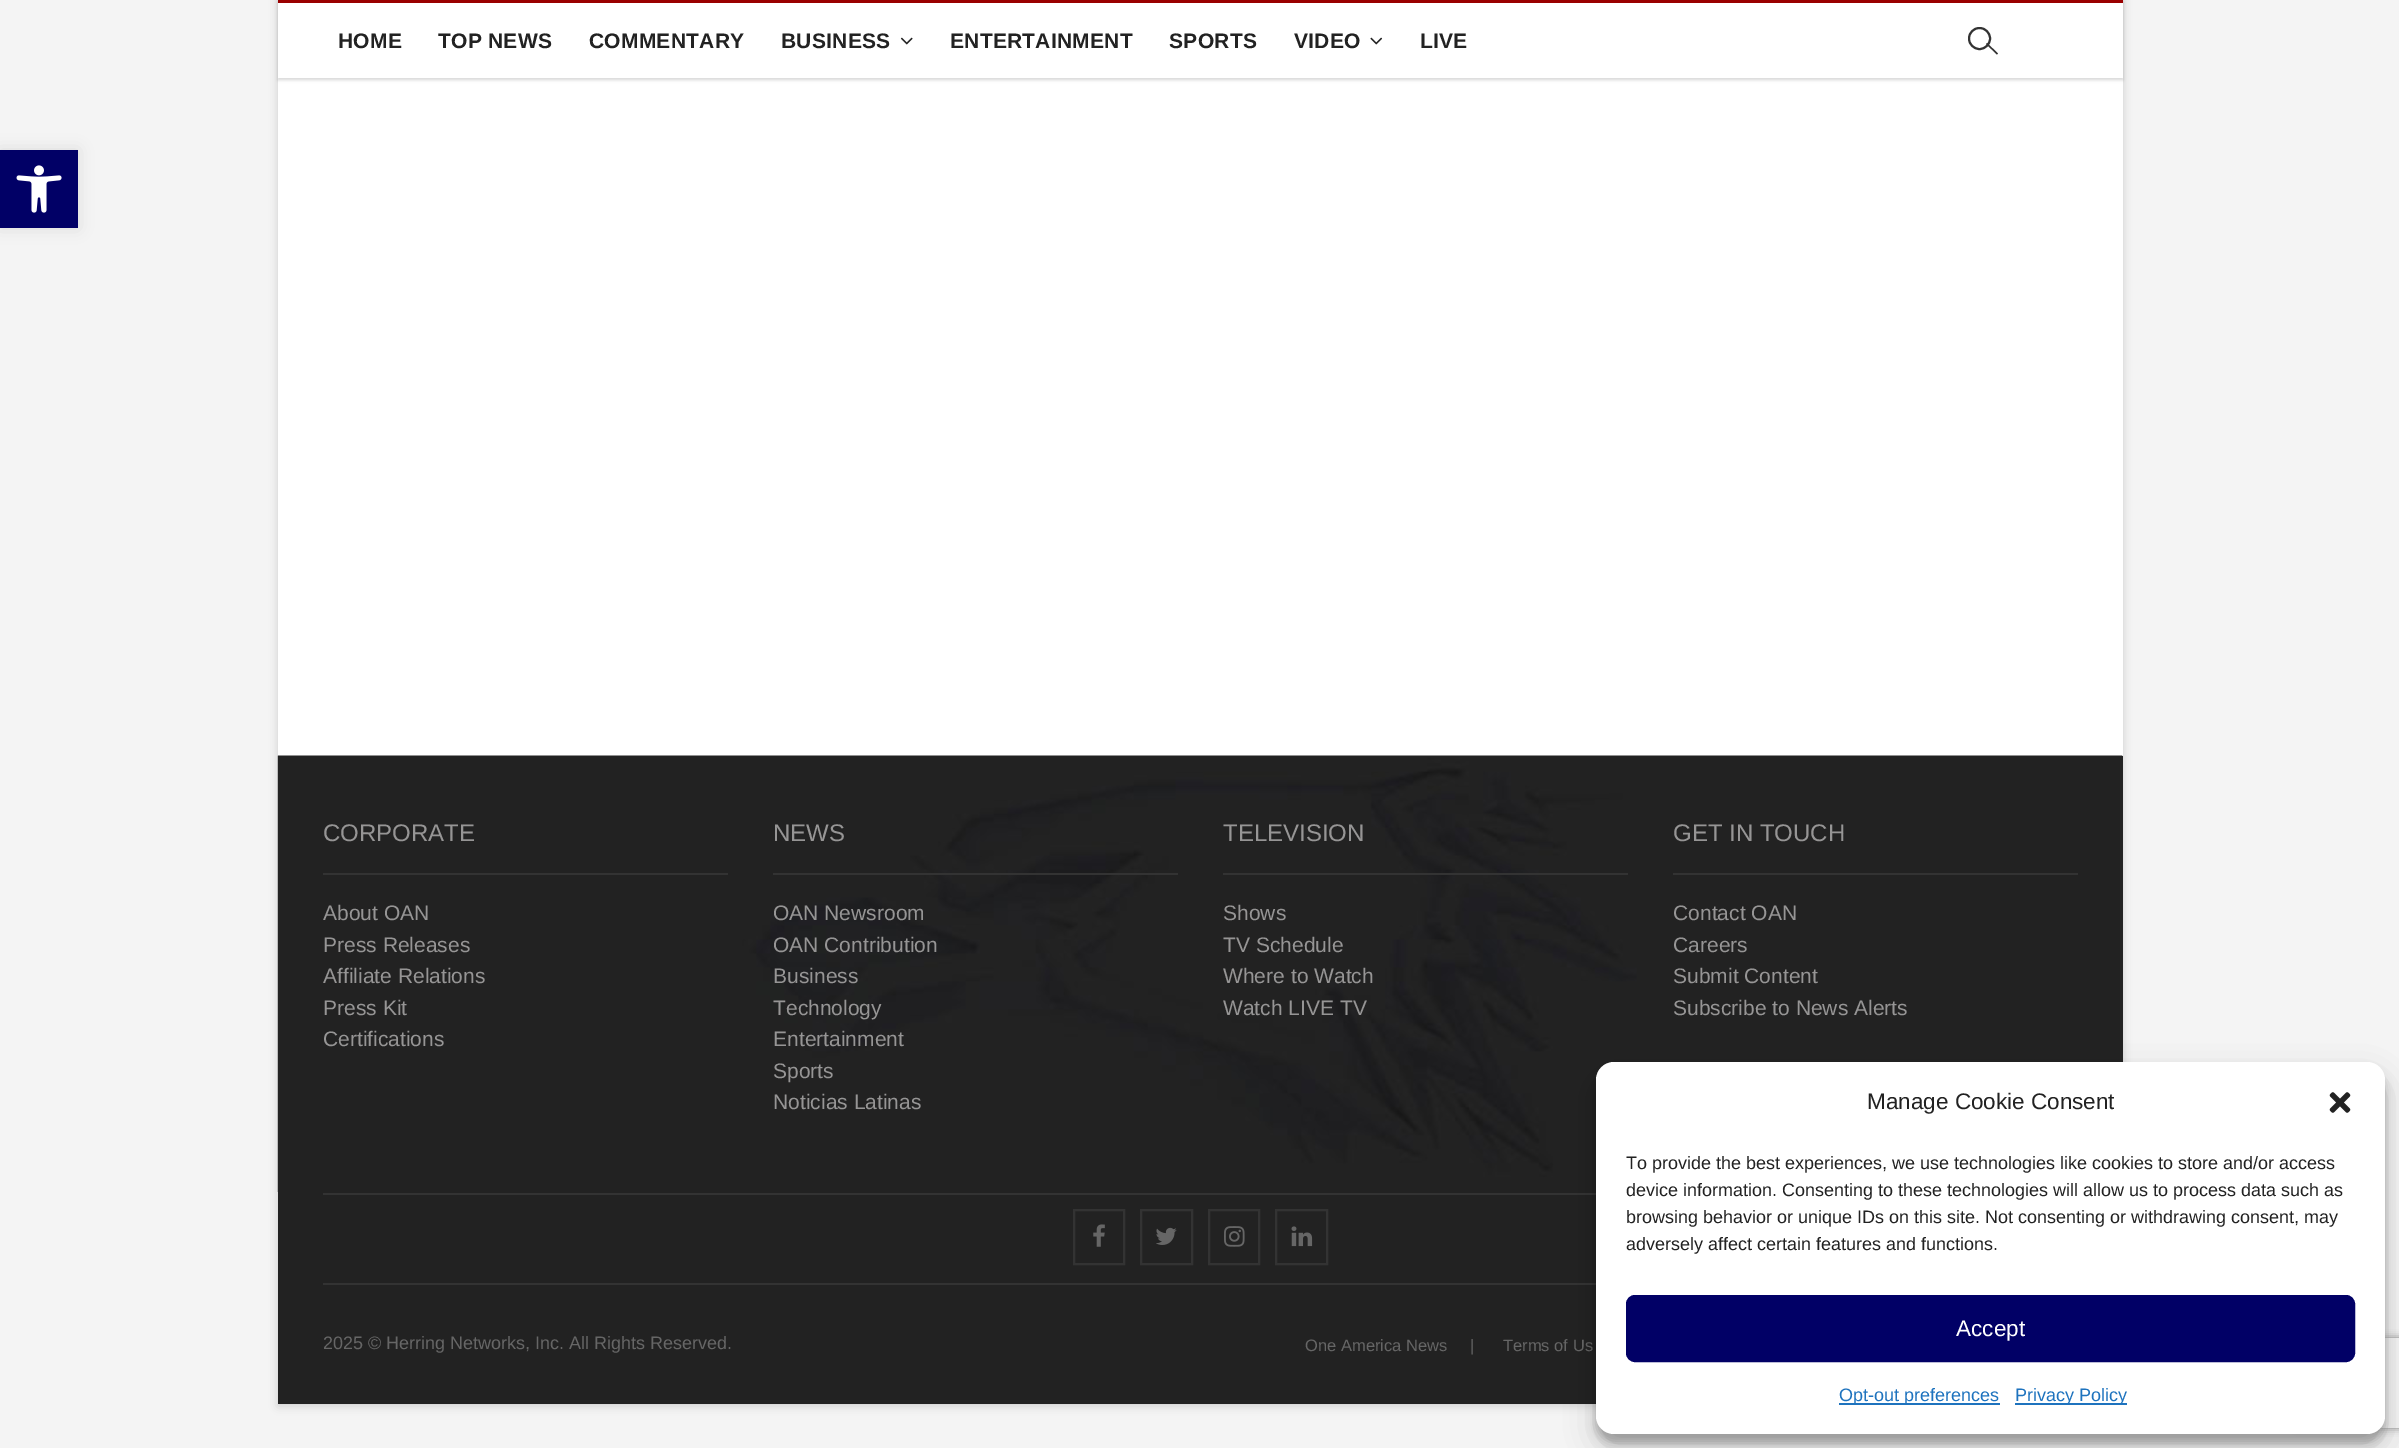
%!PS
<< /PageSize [2399 1448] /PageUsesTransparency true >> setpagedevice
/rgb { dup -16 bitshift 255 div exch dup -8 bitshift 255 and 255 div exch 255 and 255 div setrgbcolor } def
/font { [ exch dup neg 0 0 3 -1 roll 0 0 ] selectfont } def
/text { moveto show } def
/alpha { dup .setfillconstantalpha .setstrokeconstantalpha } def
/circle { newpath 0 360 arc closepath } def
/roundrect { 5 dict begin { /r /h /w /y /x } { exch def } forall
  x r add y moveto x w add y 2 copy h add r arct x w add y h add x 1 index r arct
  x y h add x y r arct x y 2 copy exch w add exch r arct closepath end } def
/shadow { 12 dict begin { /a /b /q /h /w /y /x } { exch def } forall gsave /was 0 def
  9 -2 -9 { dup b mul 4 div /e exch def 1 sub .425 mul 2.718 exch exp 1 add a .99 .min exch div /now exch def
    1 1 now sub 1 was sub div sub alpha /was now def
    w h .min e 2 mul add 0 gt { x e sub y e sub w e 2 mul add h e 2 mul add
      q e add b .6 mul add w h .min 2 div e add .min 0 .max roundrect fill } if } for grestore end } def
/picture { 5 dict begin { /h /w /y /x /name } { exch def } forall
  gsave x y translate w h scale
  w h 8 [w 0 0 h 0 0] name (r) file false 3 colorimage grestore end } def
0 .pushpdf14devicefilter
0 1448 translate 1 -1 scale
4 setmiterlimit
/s1 { /LiberationSans-Regular 24 font 16#969595 rgb } def
/s2 { /LiberationSans-Regular 21 font 16#969595 rgb } def
/s3 { /LiberationSans-Regular 18 font 16#666666 rgb } def
/s4 { /LiberationSans-Regular 16.5 font 16#666666 rgb } def
/s5 { /LiberationSans-Regular 22.5 font 16#222222 rgb } def
/s6 { /LiberationSans-Regular 18 font 16#222222 rgb } def
/s7 { /LiberationSans-Regular 22.5 font 16#FFFFFF rgb } def
/s8 { /LiberationSans-Regular 18 font 16#1E73BE rgb } def
16#F4F4F4 rgb
0 0 2399 1448 rectfill
16#000000 rgb
0 150 78 78 0 7.5 0.1 shadow
16#010066 rgb
0 150 78 78 rectfill
(pic1.raw) 16 165 46 48 picture
16#000000 rgb
278 -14 1845 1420 0 4.5 0.15 shadow
16#FFFFFF rgb
278 3 1845 753 rectfill
gsave
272 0 moveto 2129 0 lineto 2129 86 lineto 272 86 lineto closepath 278 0 moveto 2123 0 lineto 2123 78 lineto 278 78 lineto closepath eoclip newpath
16#000000 rgb
278 2 1845 78 0 1.5 0.15 shadow
grestore
0.7 alpha
2122 3 1 75 rectfill
1 alpha
16#9A0000 rgb
278 0 1845 3 rectfill
/LiberationSans-Bold 21 font
16#222222 rgb
338 48 moveto 0.25 0 (HOME) ashow
438 48 moveto 0.25 0 (TOP NEWS) ashow
589 48 moveto 0.25 0 (COMMENTARY) ashow
781 48 moveto 0.25 0 (BUSINESS) ashow
(pic2.raw) 900 37 13 8 picture
950 48 moveto 0.25 0 (ENTERTAINMENT) ashow
1169 48 moveto 0.25 0 (SPORTS) ashow
1294 48 moveto 0.25 0 (VIDEO) ashow
(pic3.raw) 1370 37 13 8 picture
1420 48 moveto 0.25 0 (LIVE) ashow
16#333333 rgb
2 setlinewidth
1979.5 38.5 10.5 circle stroke
1986 44 moveto 1987 43 lineto 1998 53.5 lineto 1997 54.5 lineto closepath fill
16#222222 rgb
278 758 1845 435 rectfill
(pic4.raw) 277 755 1846 437 picture
16#202020 rgb
2122 756 1 2 rectfill
16#333333 rgb
323 873 405 2 rectfill
s1
(CORPORATE) 323 841 text
s2
(About OAN) 323 920 text
(Press Releases) 323 952 text
(Affiliate Relations) 323 983 text
(Press Kit) 323 1015 text
(Certifications) 323 1046 text
16#333333 rgb
773 873 405 2 rectfill
s1
(NEWS) 773 841 text
s2
(OAN Newsroom) 773 920 text
(OAN Contribution) 773 952 text
(Business) 773 983 text
(Technology) 773 1015 text
(Entertainment) 773 1046 text
(Sports) 773 1078 text
(Noticias Latinas) 773 1109 text
16#333333 rgb
1223 873 405 2 rectfill
s1
(TELEVISION) 1223 841 text
s2
(Shows) 1223 920 text
(TV Schedule) 1223 952 text
(Where to Watch) 1223 983 text
(Watch LIVE TV) 1223 1015 text
16#333333 rgb
1673 873 405 2 rectfill
s1
(GET IN TOUCH) 1673 841 text
s2
(Contact OAN) 1673 920 text
(Careers) 1673 952 text
(Submit Content) 1673 983 text
(Subscribe to News Alerts) 1673 1015 text
16#222222 rgb
278 1193 1318 211 rectfill
16#333333 rgb
323 1193 1273 2 rectfill
323 1283 1273 2 rectfill
1074 1210 50 54 rectstroke
(pic5.raw) 1093 1224 12 23 picture
1141 1210 51 54 rectstroke
(pic6.raw) 1156 1227 21 18 picture
1209 1210 50 54 rectstroke
(pic7.raw) 1224 1226 21 21 picture
1276 1210 51 54 rectstroke
(pic8.raw) 1291 1226 22 21 picture
s3
(2025 © Herring Networks, Inc. All Rights Reserved.) 323 1349 text
s4
(One America News) 1305 1351 text
(|) 1470 1351 text
(Terms of Us) 1503 1351 text
16#000000 rgb
1596 1071 789 372 18 4.5 0.23 shadow
1596 1077 789 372 18 15 0.19 shadow
gsave
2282 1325 moveto 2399 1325 lineto 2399 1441 lineto 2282 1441 lineto closepath 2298 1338 moveto 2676 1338 lineto 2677.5 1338 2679 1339.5 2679 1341 curveto 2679 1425 lineto 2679 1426.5 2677.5 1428 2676 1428 curveto 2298 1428 lineto 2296.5 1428 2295 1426.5 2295 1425 curveto 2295 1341 lineto 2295 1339.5 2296.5 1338 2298 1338 curveto closepath eoclip newpath
16#808080 rgb
2295 1338 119 90 3 4 1 shadow
grestore
16#FFFFFF rgb
1596 1062 789 372 18 roundrect fill
s5
(Manage Cookie Consent) 1867 1109 text
(pic9.raw) 2329 1092 22 21 picture
s6
(To provide the best experiences, we use technologies like cookies to store and/or access) 1626 1169 text
(device information. Consenting to these technologies will allow us to process data such as) 1626 1196 text
(browsing behavior or unique IDs on this site. Not consenting or withdrawing consent, may) 1626 1223 text
(adversely affect certain features and functions.) 1626 1250 text
16#010066 rgb
1627 1296 727 65 8 roundrect gsave fill grestore
stroke
s7
(Accept) 1956 1336 text
16#1E73BE rgb
1839 1403 161 2 rectfill
s8
(Opt-out preferences) 1839 1401 text
2015 1403 112 2 rectfill
(Privacy Policy) 2015 1401 text
.poppdf14devicefilter showpage
